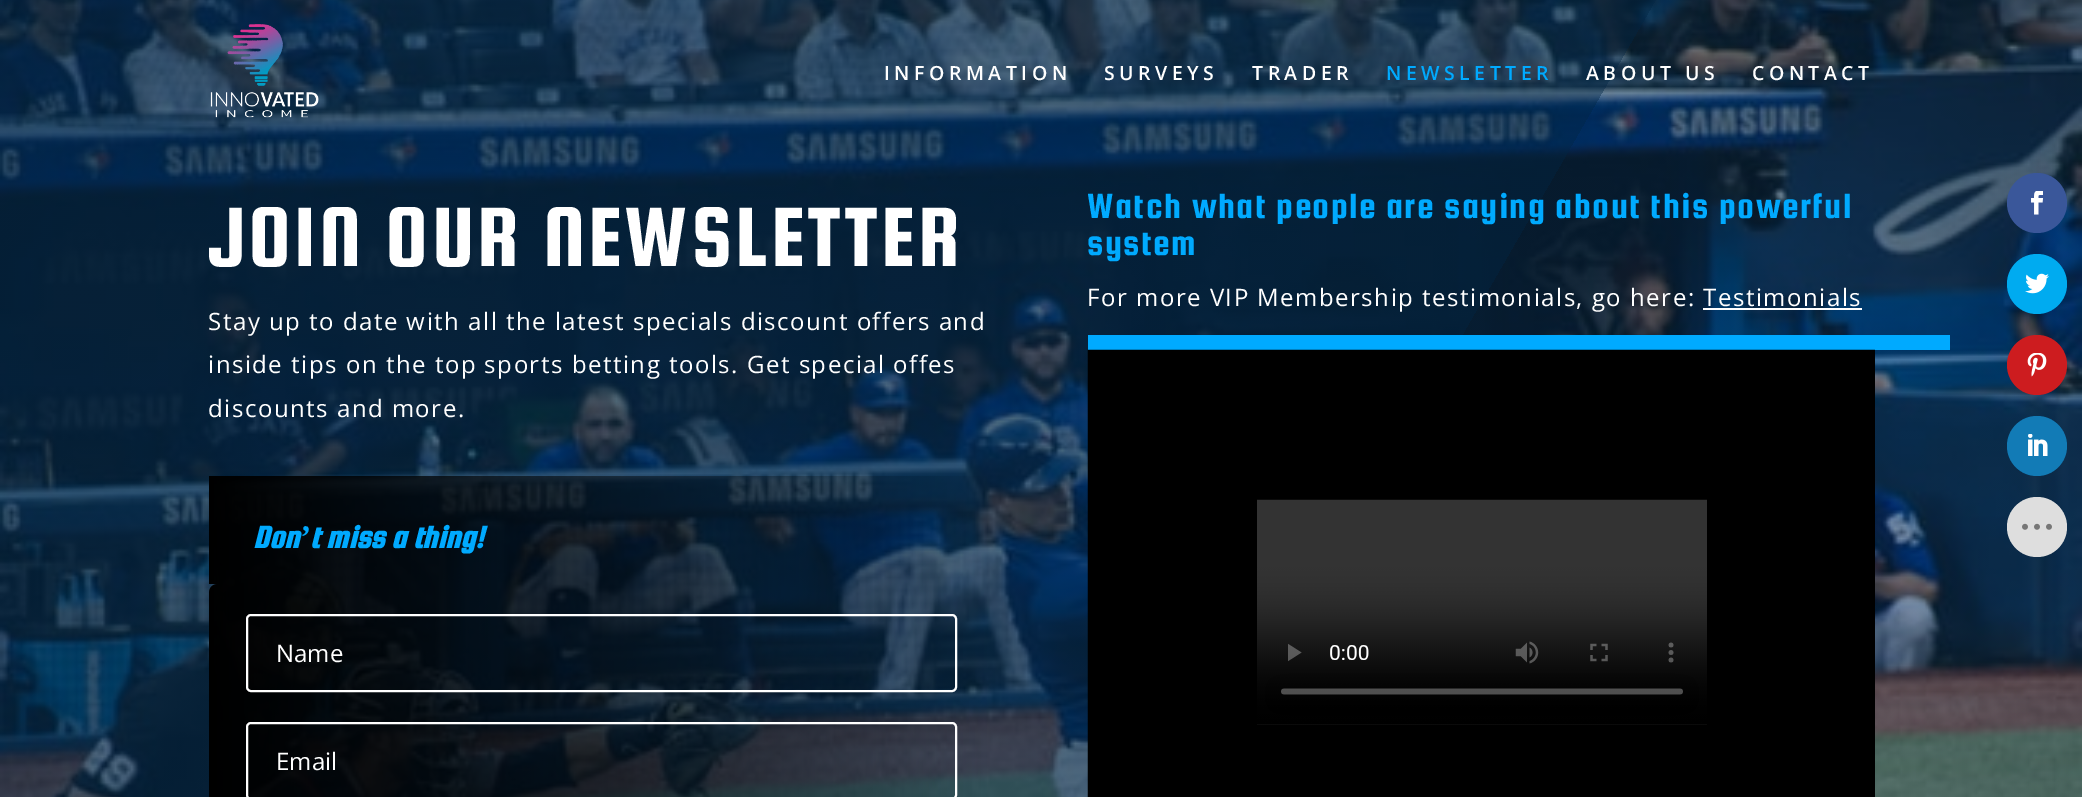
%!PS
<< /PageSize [2082 797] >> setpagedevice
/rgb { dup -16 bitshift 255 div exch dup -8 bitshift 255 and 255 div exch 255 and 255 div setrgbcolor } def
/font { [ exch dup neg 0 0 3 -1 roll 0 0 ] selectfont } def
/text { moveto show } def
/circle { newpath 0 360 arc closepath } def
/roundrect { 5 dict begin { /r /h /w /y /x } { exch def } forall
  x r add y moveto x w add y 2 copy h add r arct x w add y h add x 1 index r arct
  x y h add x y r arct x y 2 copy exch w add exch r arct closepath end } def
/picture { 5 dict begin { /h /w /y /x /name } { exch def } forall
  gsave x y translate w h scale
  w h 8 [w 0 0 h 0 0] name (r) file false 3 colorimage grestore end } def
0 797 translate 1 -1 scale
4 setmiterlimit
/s1 { /SquadaOne-BoldItalic 33 font 16#00AAFF rgb } def
/s2 { /LiberationSerif-BoldItalic 33 font 16#00AAFF rgb } def
/s3 { /OpenSans-Regular 24 font 16#FFFFFF rgb } def
16#FFFFFF rgb
0 0 2082 797 rectfill
(pic2.raw) 0 0 2082 797 picture
(pic1.raw) 210 24 109 94 picture
/OpenSans-SemiBold 19.5 font
884 80 moveto 4.5 0 (INFORMATION) ashow
1104 80 moveto 4.5 0 (SURVEYS) ashow
1252 80 moveto 4.5 0 (TRADER) ashow
16#00AAFF rgb
1386 80 moveto 4.5 0 (NEWSLETTER) ashow
16#FFFFFF rgb
1586 80 moveto 4.5 0 (ABOUT US) ashow
1752 80 moveto 4.5 0 (CONTACT) ashow
/SquadaOne-Regular 90 font
208 266 moveto 3 0 (JOIN OUR NEWSLETTER) ashow
/OpenSans-Regular 24 font
208 330 moveto 1.5 0 (Stay up to date with all the latest specials discount offers and) ashow
208 373 moveto 1.5 0 (inside tips on the top sports betting tools. Get special offes) ashow
208 417 moveto 1.5 0 (discounts and more.) ashow
s1
(Don) 253 548 text
s2
(’) 299 548 text
s1
(t miss a thing!) 310 548 text
16#FFFFFF rgb
2 setlinewidth
247 615 709 76 4 roundrect stroke
s3
(Name) 276 662 text
247 723 709 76 4 roundrect stroke
(Email) 276 770 text
16#00AAFF rgb
1088 335 862 15 rectfill
gsave
1088 186 862 149 rectclip
/SquadaOne-Regular 37.5 font
1087 218 moveto 1.5 0 (Watch what people are saying about this powerful) ashow
grestore
/SquadaOne-Regular 37.5 font
1087 255 moveto 1.5 0 (system) ashow
/OpenSans-Regular 24 font
16#FFFFFF rgb
1087 306 moveto 1.5 0 (For more VIP Membership testimonials, go here: Testimonials) ashow
1703 308 159 2 rectfill
(pic3.raw) 1087 349 788 448 picture
16#3A579A rgb
2037 203 30 circle fill
(pic4.raw) 2031 191 13 24 picture
16#00ABF0 rgb
2037 284 30 circle fill
(pic5.raw) 2025 273 24 21 picture
16#CD1C1F rgb
2037 365 30 circle fill
(pic6.raw) 2027 353 20 24 picture
16#127BB6 rgb
2037 446 30 circle fill
(pic7.raw) 2028 434 20 22 picture
16#DEDEDE rgb
2037 527 30 circle fill
(pic8.raw) 2022 523 30 7 picture
showpage
